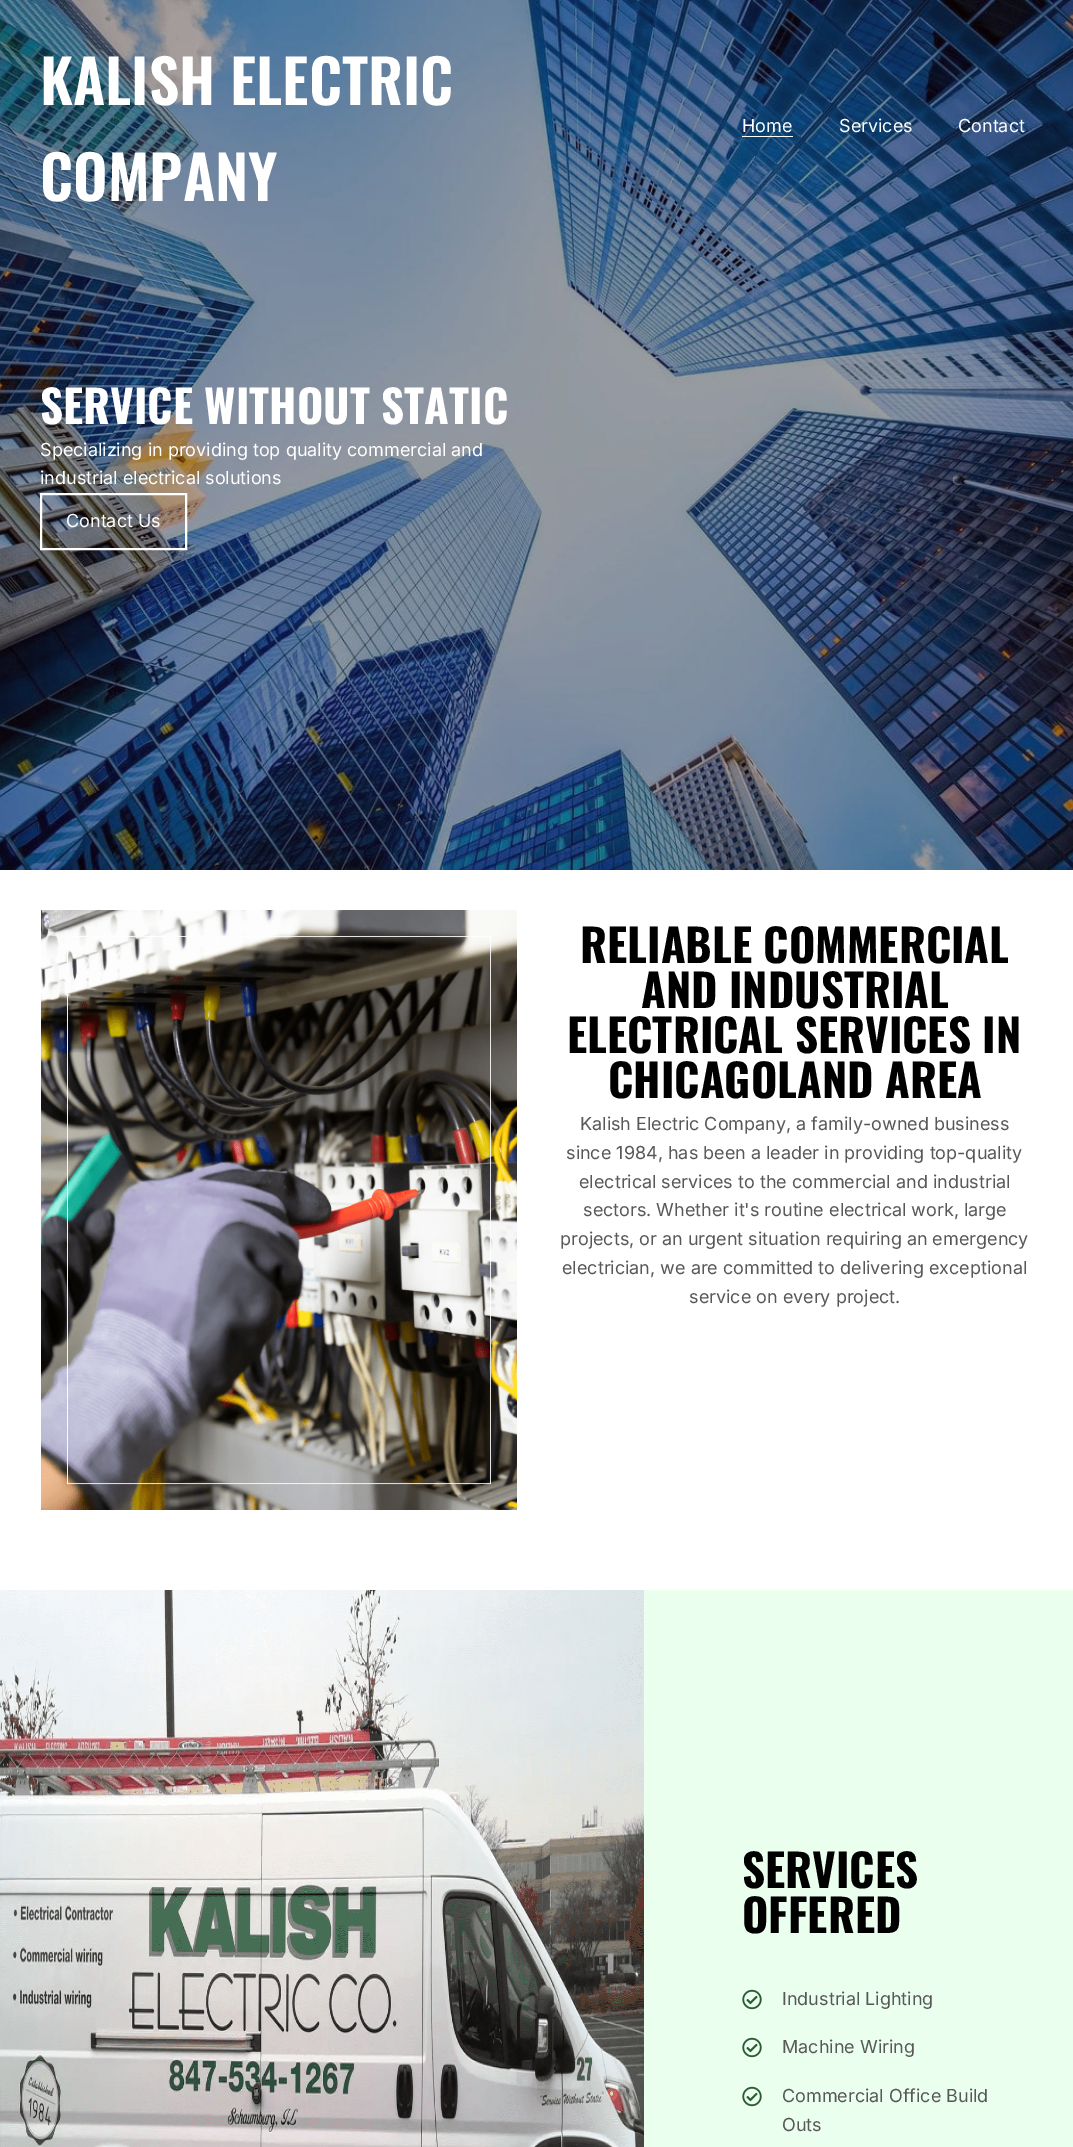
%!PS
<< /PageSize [1073 2147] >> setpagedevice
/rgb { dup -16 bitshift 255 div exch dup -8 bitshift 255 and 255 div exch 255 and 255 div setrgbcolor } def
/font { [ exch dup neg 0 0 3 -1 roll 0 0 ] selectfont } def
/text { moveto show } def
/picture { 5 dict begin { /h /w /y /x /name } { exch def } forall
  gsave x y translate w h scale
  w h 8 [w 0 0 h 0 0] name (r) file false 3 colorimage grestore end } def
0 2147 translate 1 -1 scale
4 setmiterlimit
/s1 { /Oswald-SemiBold 60 font 16#FFFFFF rgb } def
/s2 { /Inter-Regular 18 font 16#FFFFFF rgb } def
/s3 { /Oswald-Bold 45 font 16#FFFFFF rgb } def
/s4 { /Oswald-Bold 45 font 16#000000 rgb } def
/s5 { /Inter-Regular 18 font 16#585858 rgb } def
16#FFFFFF rgb
0 0 1073 2147 rectfill
(pic1.raw) 0 0 1073 870 picture
s1
(KALISH ELECTRIC) 40 105 text
(COMPANY) 40 201 text
s2
(Home) 742 132 text
742 136 51 1 rectfill
(Services) 839 132 text
(Contact) 958 132 text
s3
(SERVICE WITHOUT STATIC) 40 424 text
s2
(Specializing in providing top quality commercial and) 40 456 text
(industrial electrical solutions) 40 484 text
2 setlinewidth
41 494 145 55 rectstroke
(Contact Us) 66 527 text
(pic2.raw) 41 910 476 600 picture
s4
(RELIABLE COMMERCIAL) 580 963 text
(AND INDUSTRIAL) 641 1008 text
(ELECTRICAL SERVICES IN) 567 1053 text
(CHICAGOLAND AREA) 608 1098 text
s5
(Kalish Electric Company, a family-owned business) 580 1130 text
(since 1984, has been a leader in providing top-quality) 566 1159 text
(electrical services to the commercial and industrial) 579 1188 text
(sectors. Whether it's routine electrical work, large) 583 1216 text
(projects, or an urgent situation requiring an emergency) 560 1245 text
(electrician, we are committed to delivering exceptional) 562 1274 text
(service on every project.) 689 1303 text
16#EBFFEF rgb
644 1590 429 557 rectfill
(pic3.raw) 0 1590 644 557 picture
s4
(SERVICES) 742 1888 text
(OFFERED) 742 1933 text
(pic4.raw) 742 1989 20 21 picture
s5
(Industrial Lighting) 782 2005 text
(pic4.raw) 742 2037 20 21 picture
(Machine Wiring) 782 2053 text
(pic4.raw) 742 2086 20 21 picture
(Commercial Office Build) 782 2102 text
(Outs) 782 2131 text
showpage
